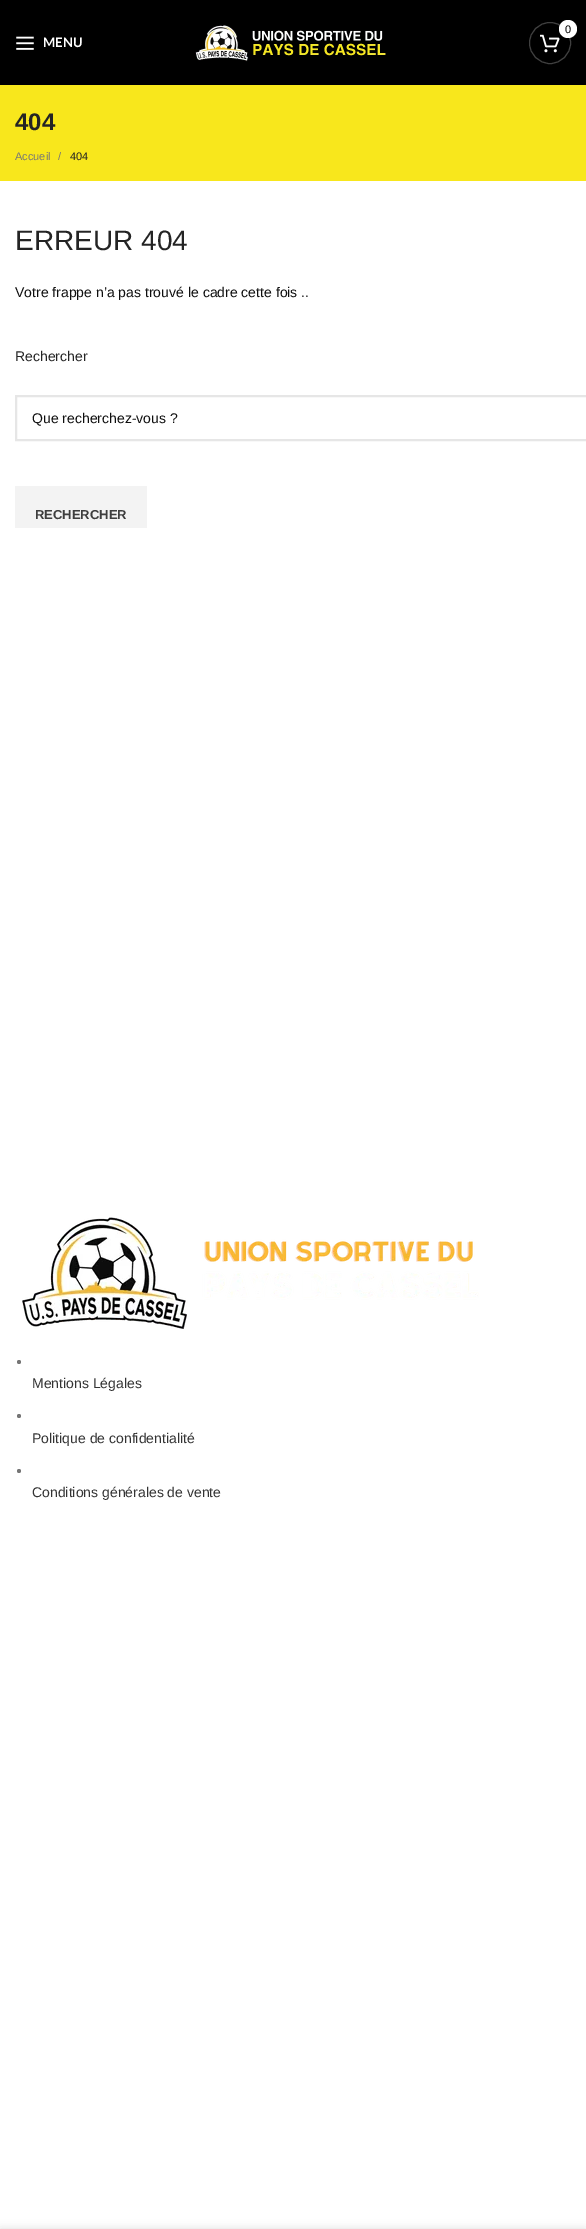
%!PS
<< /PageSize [586 2229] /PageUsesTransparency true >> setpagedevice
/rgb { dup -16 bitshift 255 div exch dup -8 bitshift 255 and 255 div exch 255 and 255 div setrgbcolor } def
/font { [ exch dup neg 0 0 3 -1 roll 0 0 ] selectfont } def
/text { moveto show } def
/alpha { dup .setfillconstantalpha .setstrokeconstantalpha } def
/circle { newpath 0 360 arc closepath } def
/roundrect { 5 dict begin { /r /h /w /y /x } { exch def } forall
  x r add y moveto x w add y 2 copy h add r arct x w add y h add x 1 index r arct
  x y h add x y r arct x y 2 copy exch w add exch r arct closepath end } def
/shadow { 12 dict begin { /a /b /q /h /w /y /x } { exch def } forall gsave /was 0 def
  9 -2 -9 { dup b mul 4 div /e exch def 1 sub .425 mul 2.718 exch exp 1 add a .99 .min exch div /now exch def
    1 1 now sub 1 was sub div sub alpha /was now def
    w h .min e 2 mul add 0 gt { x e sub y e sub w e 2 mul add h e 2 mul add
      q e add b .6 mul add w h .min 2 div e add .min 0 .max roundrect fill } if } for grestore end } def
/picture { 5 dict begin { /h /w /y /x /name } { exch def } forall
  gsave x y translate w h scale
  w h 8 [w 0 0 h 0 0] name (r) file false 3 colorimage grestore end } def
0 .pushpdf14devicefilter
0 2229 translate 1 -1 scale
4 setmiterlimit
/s1 { /LiberationSans-Regular 11 font 16#000000 rgb } def
/s2 { /Lato-Bold 13 font 16#FFFFFF rgb } def
/s3 { /LiberationSans-Bold 24 font 16#242424 rgb } def
/s4 { /LiberationSans-Regular 11 font 16#767676 rgb } def
/s5 { /LiberationSans-Regular 11 font 16#242424 rgb } def
/s6 { /LiberationSans-Regular 28 font 16#242424 rgb } def
/s7 { /LiberationSans-Regular 14 font 16#0F0F0F rgb } def
/s8 { /LiberationSans-Regular 14 font 16#242424 rgb } def
/s9 { /LiberationSans-Bold 13 font 16#3E3E3E rgb } def
/s10 { /LiberationSans-Regular 14 font 16#333333 rgb } def
16#FFFFFF rgb
0 0 586 2229 rectfill
16#000000 rgb
0 0 586 85 rectfill
(pic1.raw) 195 25 191 37 picture
16#404040 rgb
550 43 20.5 circle stroke
(pic2.raw) 540 34 20 19 picture
16#FFFFFF rgb
568 29 9 circle fill
s1
(0) 565 33 text
(pic3.raw) 16 36 18 14 picture
s2
(MENU) 43 47 text
16#F8E71C rgb
0 85 586 96 rectfill
s3
(404) 15 130 text
s4
(Accueil) 15 160 text
(/) 58 160 text
s5
(404) 70 160 text
s6
(ERREUR 404) 15 250 text
s7
(Votre frappe n’a pas trouvé le cadre cette fois ..) 15 297 text
s8
(Rechercher) 15 361 text
16#E6E6E6 rgb
2 setlinewidth
16 396 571 44 rectstroke
s7
(Que recherchez-vous ?) 32 423 text
16#F3F3F3 rgb
15 486 132 42 rectfill
s9
(RECHERCHER) 35 519 text
(pic4.raw) 22 1217 457 112 picture
16#767676 rgb
19 1362 2 circle fill
s10
(Mentions Légales) 32 1388 text
16#767676 rgb
19 1416 2 circle fill
s10
(Politique de confidentialité) 32 1443 text
16#767676 rgb
19 1471 2 circle fill
s10
(Conditions générales de vente) 32 1497 text
16#000000 rgb
0 2229 586 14 0 4.5 0.14 shadow
.poppdf14devicefilter showpage
